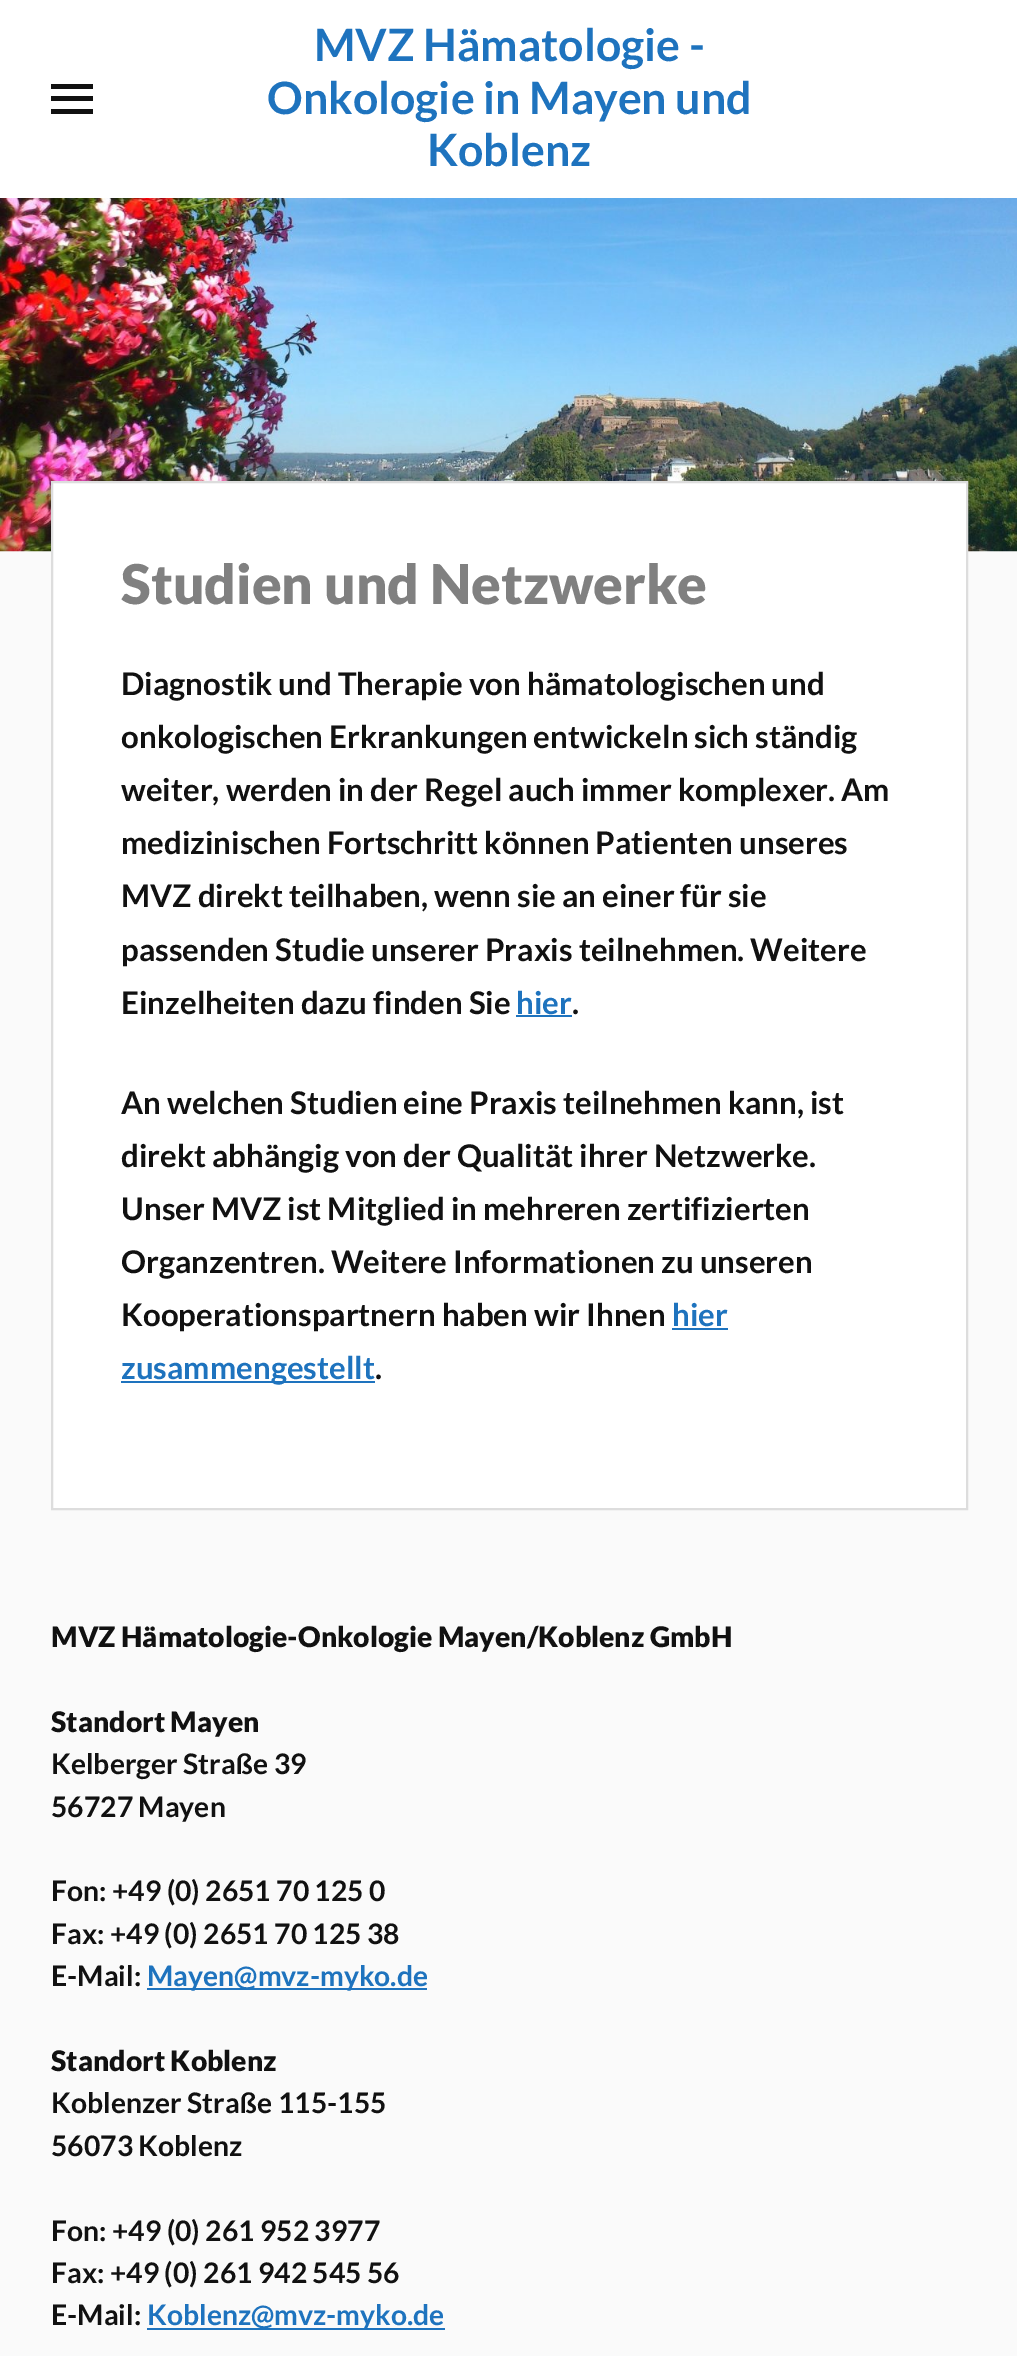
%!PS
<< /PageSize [1017 2356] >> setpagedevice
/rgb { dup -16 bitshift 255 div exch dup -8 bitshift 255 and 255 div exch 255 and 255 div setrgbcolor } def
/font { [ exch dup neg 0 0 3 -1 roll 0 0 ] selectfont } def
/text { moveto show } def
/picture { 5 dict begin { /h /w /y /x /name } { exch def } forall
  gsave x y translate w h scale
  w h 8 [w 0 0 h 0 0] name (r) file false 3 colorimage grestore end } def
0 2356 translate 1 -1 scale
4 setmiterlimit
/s1 { /Lato-Bold 44.6 font 16#1E73BE rgb } def
/s2 { /Lato-Black 54.75 font 16#808080 rgb } def
/s3 { /Lato-Bold 31.25 font 16#111111 rgb } def
/s4 { /Lato-Bold 31.25 font 16#1E73BE rgb } def
/s5 { /Lato-Black 28.25 font 16#111111 rgb } def
/s6 { /Lato-Bold 28.25 font 16#111111 rgb } def
/s7 { /Lato-Bold 28.25 font 16#1E73BE rgb } def
16#FAFAFA rgb
0 0 1017 2356 rectfill
16#FFFFFF rgb
0 0 1017 198 rectfill
16#111111 rgb
51 84 42 5 rectfill
51 96 42 5 rectfill
51 109 42 5 rectfill
s1
(MVZ Hämatologie -) 314 61 text
(Onkologie in Mayen und) 267 114 text
(Koblenz) 427 166 text
(pic1.raw) 0 198 1017 354 picture
16#FFFFFF rgb
52 482 moveto 967 482 lineto 967 1509 lineto 52 1509 lineto closepath gsave fill grestore
16#DDDDDD rgb
2 setlinewidth
stroke
s2
(Studien und Netzwerke) 121 604 text
s3
(Diagnostik und Therapie von hämatologischen und) 121 695 text
(onkologischen Erkrankungen entwickeln sich ständig) 121 748 text
(weiter, werden in der Regel auch immer komplexer. Am) 121 801 text
(medizinischen Fortschritt können Patienten unseres) 121 854 text
(MVZ direkt teilhaben, wenn sie an einer für sie) 121 907 text
(passenden Studie unserer Praxis teilnehmen. Weitere) 121 961 text
(Einzelheiten dazu finden Sie) 121 1014 text
s4
(hier) 516 1014 text
516 1015 56 2 rectfill
s3
(.) 572 1014 text
(An welchen Studien eine Praxis teilnehmen kann, ist) 121 1114 text
(direkt abhängig von der Qualität ihrer Netzwerke.) 121 1167 text
(Unser MVZ ist Mitglied in mehreren zertifizierten) 121 1220 text
(Organzentren. Weitere Informationen zu unseren) 121 1273 text
(Kooperationspartnern haben wir Ihnen) 121 1326 text
s4
(hier) 672 1326 text
672 1328 56 2 rectfill
121 1381 254 2 rectfill
(zusammengestellt) 121 1379 text
s3
(.) 375 1379 text
s5
(MVZ Hämatologie-Onkologie Mayen/Koblenz GmbH) 51 1647 text
(Standort Mayen) 51 1732 text
s6
(Kelberger Straße 39) 51 1774 text
(56727 Mayen) 51 1817 text
(Fon: +49 \(0\) 2651 70 125 0) 51 1901 text
(Fax: +49 \(0\) 2651 70 125 38) 51 1944 text
(E-Mail:) 51 1986 text
16#1E73BE rgb
147 1988 280 2 rectfill
(Mayen@mvz-myko.de) 147 1986 text
s5
(Standort Koblenz) 51 2071 text
s6
(Koblenzer Straße 115-155) 51 2113 text
(56073 Koblenz) 51 2156 text
(Fon: +49 \(0\) 261 952 3977) 51 2241 text
(Fax: +49 \(0\) 261 942 545 56) 51 2283 text
(E-Mail:) 51 2325 text
16#1E73BE rgb
147 2328 298 2 rectfill
(Koblenz@mvz-myko.de) 147 2325 text
showpage
